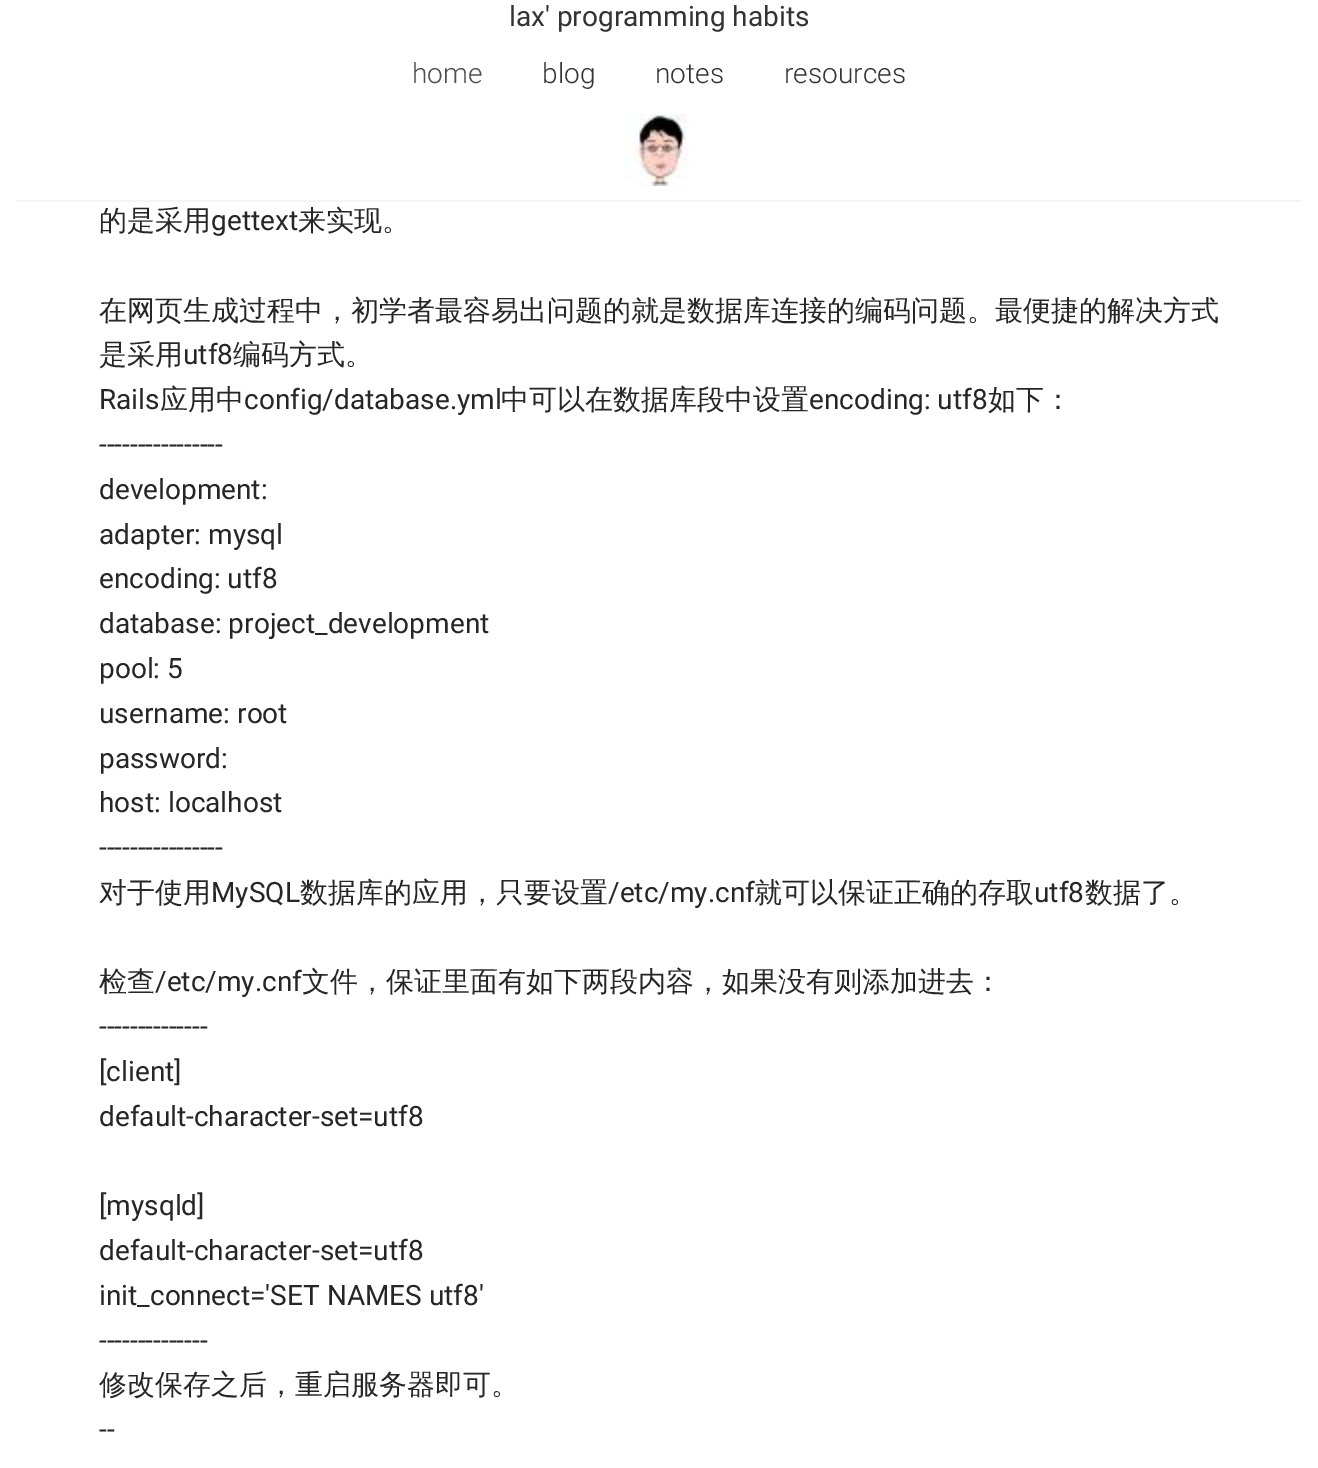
%!PS
<< /PageSize [1318 1468] >> setpagedevice
/rgb { dup -16 bitshift 255 div exch dup -8 bitshift 255 and 255 div exch 255 and 255 div setrgbcolor } def
/font { [ exch dup neg 0 0 3 -1 roll 0 0 ] selectfont } def
/text { moveto show } def
/picture { 5 dict begin { /h /w /y /x /name } { exch def } forall
  gsave x y translate w h scale
  w h 8 [w 0 0 h 0 0] name (r) file false 3 colorimage grestore end } def
0 1468 translate 1 -1 scale
4 setmiterlimit
/s1 { /Roboto-Regular 28 font 16#333333 rgb } def
/s2 { /Roboto-Light 28 font 16#4D4D4D rgb } def
/s3 { /Roboto-Light 28 font 16#333333 rgb } def
/s4 { /WenQuanYiZenHei-Medium 28 font 16#262626 rgb } def
/s5 { /Roboto-Regular 28 font 16#262626 rgb } def
16#FFFFFF rgb
0 0 1318 1468 rectfill
16#F5F5F5 rgb
16 200 1286 2 rectfill
s1
(lax' programming habits) 509 26 text
s2
(home) 412 83 text
s3
(blog) 542 83 text
(notes) 655 83 text
(resources) 784 83 text
(pic1.raw) 624 114 72 72 picture
s4
(的是采用) 99 230 text
s5
(gettext) 211 230 text
s4
(来实现。) 298 230 text
(在网页生成过程中，初学者最容易出问题的就是数据库连接的编码问题。最便捷的解决方式) 99 320 text
(是采用) 99 364 text
s5
(utf8) 183 364 text
s4
(编码方式。) 233 364 text
s5
(Rails) 99 409 text
s4
(应用中) 160 409 text
s5
(config/database.yml) 244 409 text
s4
(中可以在数据库段中设置) 501 409 text
s5
(encoding: utf8) 809 409 text
s4
(如下：) 988 409 text
s5
(----------------) 99 454 text
(development:) 99 499 text
(adapter: mysql) 99 544 text
(encoding: utf8) 99 588 text
(database: project_development) 99 633 text
(pool: 5) 99 678 text
(username: root) 99 723 text
(password:) 99 768 text
(host: localhost) 99 812 text
(----------------) 99 857 text
s4
(对于使用) 99 902 text
s5
(MySQL) 211 902 text
s4
(数据库的应用，只要设置) 300 902 text
s5
(/etc/my.cnf) 608 902 text
s4
(就可以保证正确的存取) 754 902 text
s5
(utf8) 1034 902 text
s4
(数据了。) 1085 902 text
(检查) 99 991 text
s5
(/etc/my.cnf) 155 991 text
s4
(文件，保证里面有如下两段内容，如果没有则添加进去：) 302 991 text
s5
(--------------) 99 1036 text
([client]) 99 1081 text
(default-character-set=utf8) 99 1126 text
([mysqld]) 99 1215 text
(default-character-set=utf8) 99 1260 text
(init_connect='SET NAMES utf8') 99 1305 text
(--------------) 99 1350 text
s4
(修改保存之后，重启服务器即可。) 99 1394 text
s5
(--) 99 1439 text
showpage
